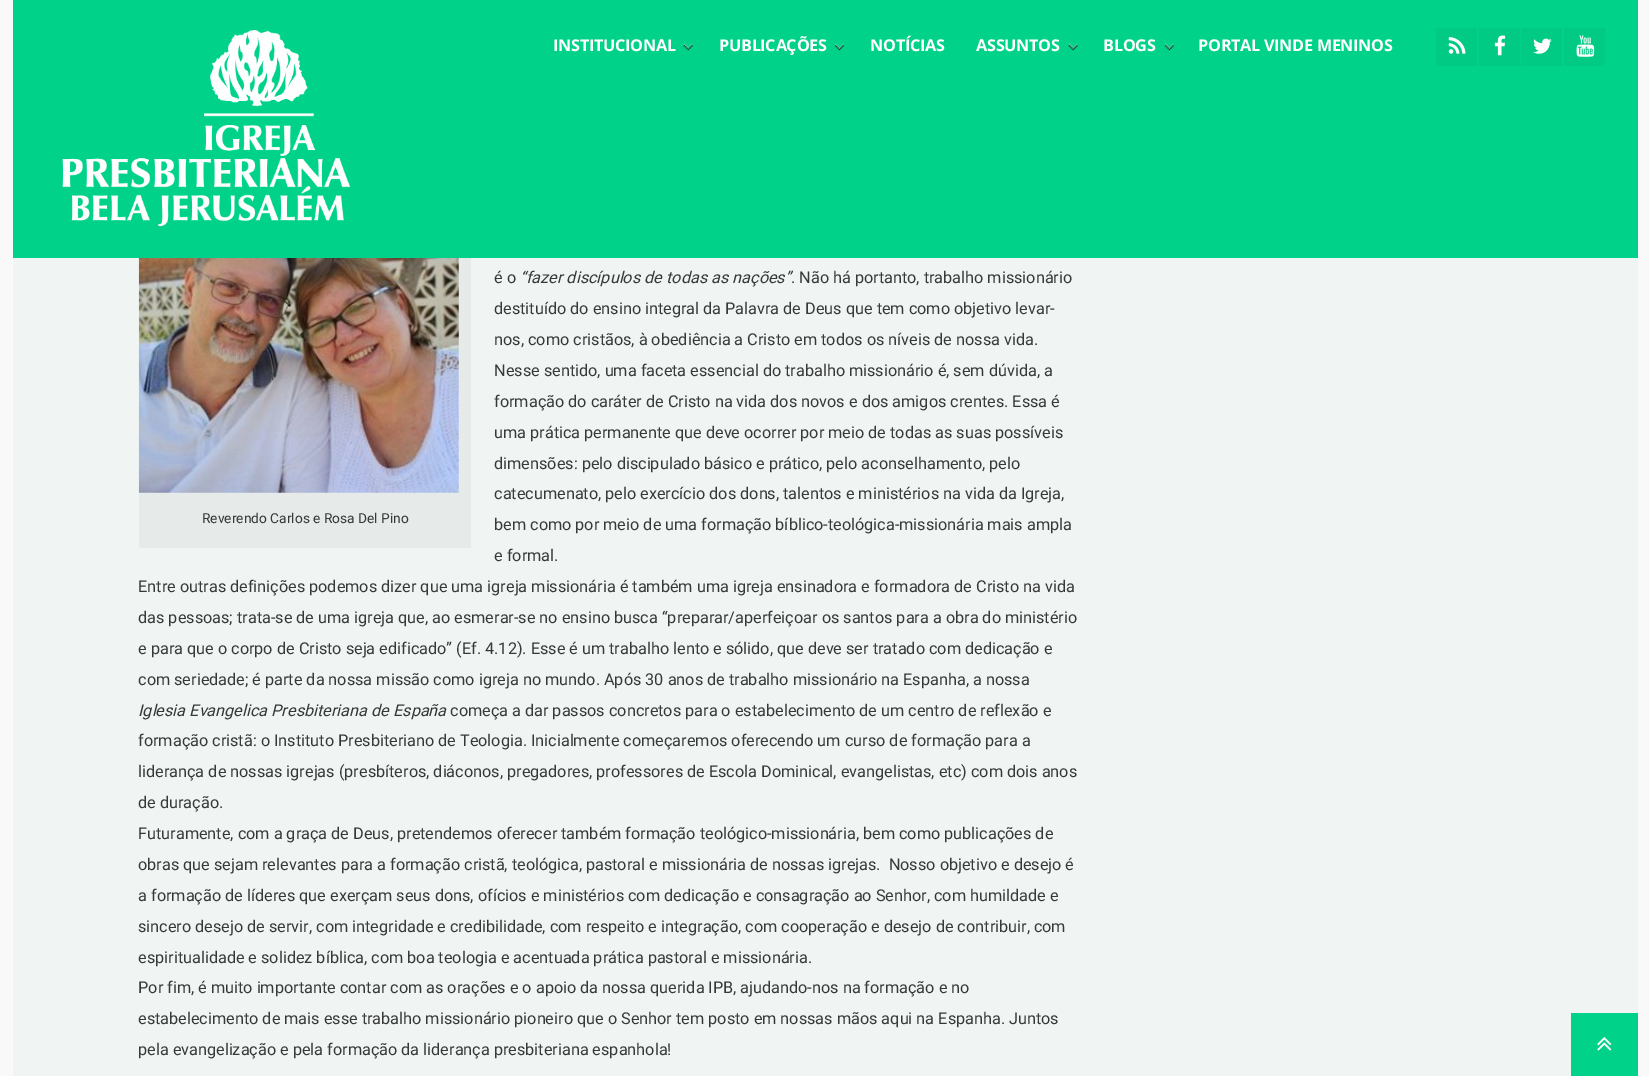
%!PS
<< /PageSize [1649 1076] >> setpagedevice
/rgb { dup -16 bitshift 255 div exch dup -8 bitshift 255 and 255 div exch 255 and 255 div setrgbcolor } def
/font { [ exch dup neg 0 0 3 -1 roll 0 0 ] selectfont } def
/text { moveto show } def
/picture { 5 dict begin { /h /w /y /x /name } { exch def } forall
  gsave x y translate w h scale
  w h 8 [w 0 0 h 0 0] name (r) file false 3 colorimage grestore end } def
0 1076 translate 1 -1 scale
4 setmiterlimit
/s1 { /Roboto-Regular 16.25 font 16#373838 rgb } def
/s2 { /Roboto-Italic 16.25 font 16#373838 rgb } def
/s3 { /Roboto-Regular 13.75 font 16#373838 rgb } def
16#F9F9F9 rgb
0 0 1649 1076 rectfill
16#00D289 rgb
13 0 1625 258 rectfill
(pic1.raw) 62 30 288 197 picture
(pic2.raw) 683 42 10 9 picture
/OpenSans-Bold 16.25 font
16#FFFFFF rgb
553 51 moveto -0.3 0 (INSTITUCIONAL) ashow
(pic3.raw) 834 43 10 8 picture
719 51 moveto -0.3 0 (PUBLICAÇÕES) ashow
870 51 moveto -0.3 0 (NOTÍCIAS) ashow
(pic4.raw) 1068 42 10 9 picture
976 51 moveto -0.3 0 (ASSUNTOS) ashow
(pic3.raw) 1164 43 10 8 picture
1103 51 moveto -0.3 0 (BLOGS) ashow
1198 51 moveto -0.3 0 (PORTAL VINDE MENINOS) ashow
16#00CA84 rgb
1436 28 41 38 rectfill
(pic5.raw) 1448 37 18 17 picture
1479 28 41 38 rectfill
(pic6.raw) 1494 35 12 21 picture
1521 28 41 38 rectfill
(pic7.raw) 1533 38 19 16 picture
1564 28 41 38 rectfill
(pic8.raw) 1576 35 19 22 picture
16#F0F5F4 rgb
13 258 1625 818 rectfill
s1
(é o) 494 283 text
s2
(“fazer discípulos de todas as nações”) 520 283 text
s1
(. Não há portanto, trabalho missionário) 791 283 text
(destituído do ensino integral da Palavra de Deus que tem como objetivo levar-) 494 314 text
(nos, como cristãos, à obediência a Cristo em todos os níveis de nossa vida.) 494 345 text
(Nesse sentido, uma faceta essencial do trabalho missionário é, sem dúvida, a) 494 376 text
(formação do caráter de Cristo na vida dos novos e dos amigos crentes. Essa é) 494 407 text
(uma prática permanente que deve ocorrer por meio de todas as suas possíveis) 494 438 text
(dimensões: pelo discipulado básico e prático, pelo aconselhamento, pelo) 494 469 text
(catecumenato, pelo exercício dos dons, talentos e ministérios na vida da Igreja,) 494 499 text
(bem como por meio de uma formação bíblico-teológica-missionária mais ampla) 494 530 text
(e formal.) 494 561 text
(Entre outras definições podemos dizer que uma igreja missionária é também uma igreja ensinadora e formadora de Cristo na vida) 138 592 text
(das pessoas; trata-se de uma igreja que, ao esmerar-se no ensino busca “preparar/aperfeiçoar os santos para a obra do ministério) 138 623 text
(e para que o corpo de Cristo seja edificado” \(Ef. 4.12\). Esse é um trabalho lento e sólido, que deve ser tratado com dedicação e) 138 654 text
(com seriedade; é parte da nossa missão como igreja no mundo. Após 30 anos de trabalho missionário na Espanha, a nossa) 138 685 text
s2
(Iglesia Evangelica Presbiteriana de España) 138 716 text
s1
(começa a dar passos concretos para o estabelecimento de um centro de reflexão e) 450 716 text
(formação cristã: o Instituto Presbiteriano de Teologia. Inicialmente começaremos oferecendo um curso de formação para a) 138 746 text
(liderança de nossas igrejas \(presbíteros, diáconos, pregadores, professores de Escola Dominical, evangelistas, etc\) com dois anos) 138 777 text
(de duração.) 138 808 text
(Futuramente, com a graça de Deus, pretendemos oferecer também formação teológico-missionária, bem como publicações de) 138 839 text
(obras que sejam relevantes para a formação cristã, teológica, pastoral e missionária de nossas igrejas.  Nosso objetivo e desejo é) 138 870 text
(a formação de líderes que exerçam seus dons, ofícios e ministérios com dedicação e consagração ao Senhor, com humildade e) 138 901 text
(sincero desejo de servir, com integridade e credibilidade, com respeito e integração, com cooperação e desejo de contribuir, com) 138 932 text
(espiritualidade e solidez bíblica, com boa teologia e acentuada prática pastoral e missionária.) 138 963 text
(Por fim, é muito importante contar com as orações e o apoio da nossa querida IPB, ajudando-nos na formação e no) 138 993 text
(estabelecimento de mais esse trabalho missionário pioneiro que o Senhor tem posto em nossas mãos aqui na Espanha. Juntos) 138 1024 text
(pela evangelização e pela formação da liderança presbiteriana espanhola!) 138 1055 text
16#E6EBEA rgb
139 258 332 290 rectfill
(pic9.raw) 138 258 321 235 picture
s3
(Reverendo Carlos e Rosa Del Pino) 202 523 text
16#00D289 rgb
1571 1013 67 63 rectfill
(pic10.raw) 1597 1037 15 14 picture
showpage
